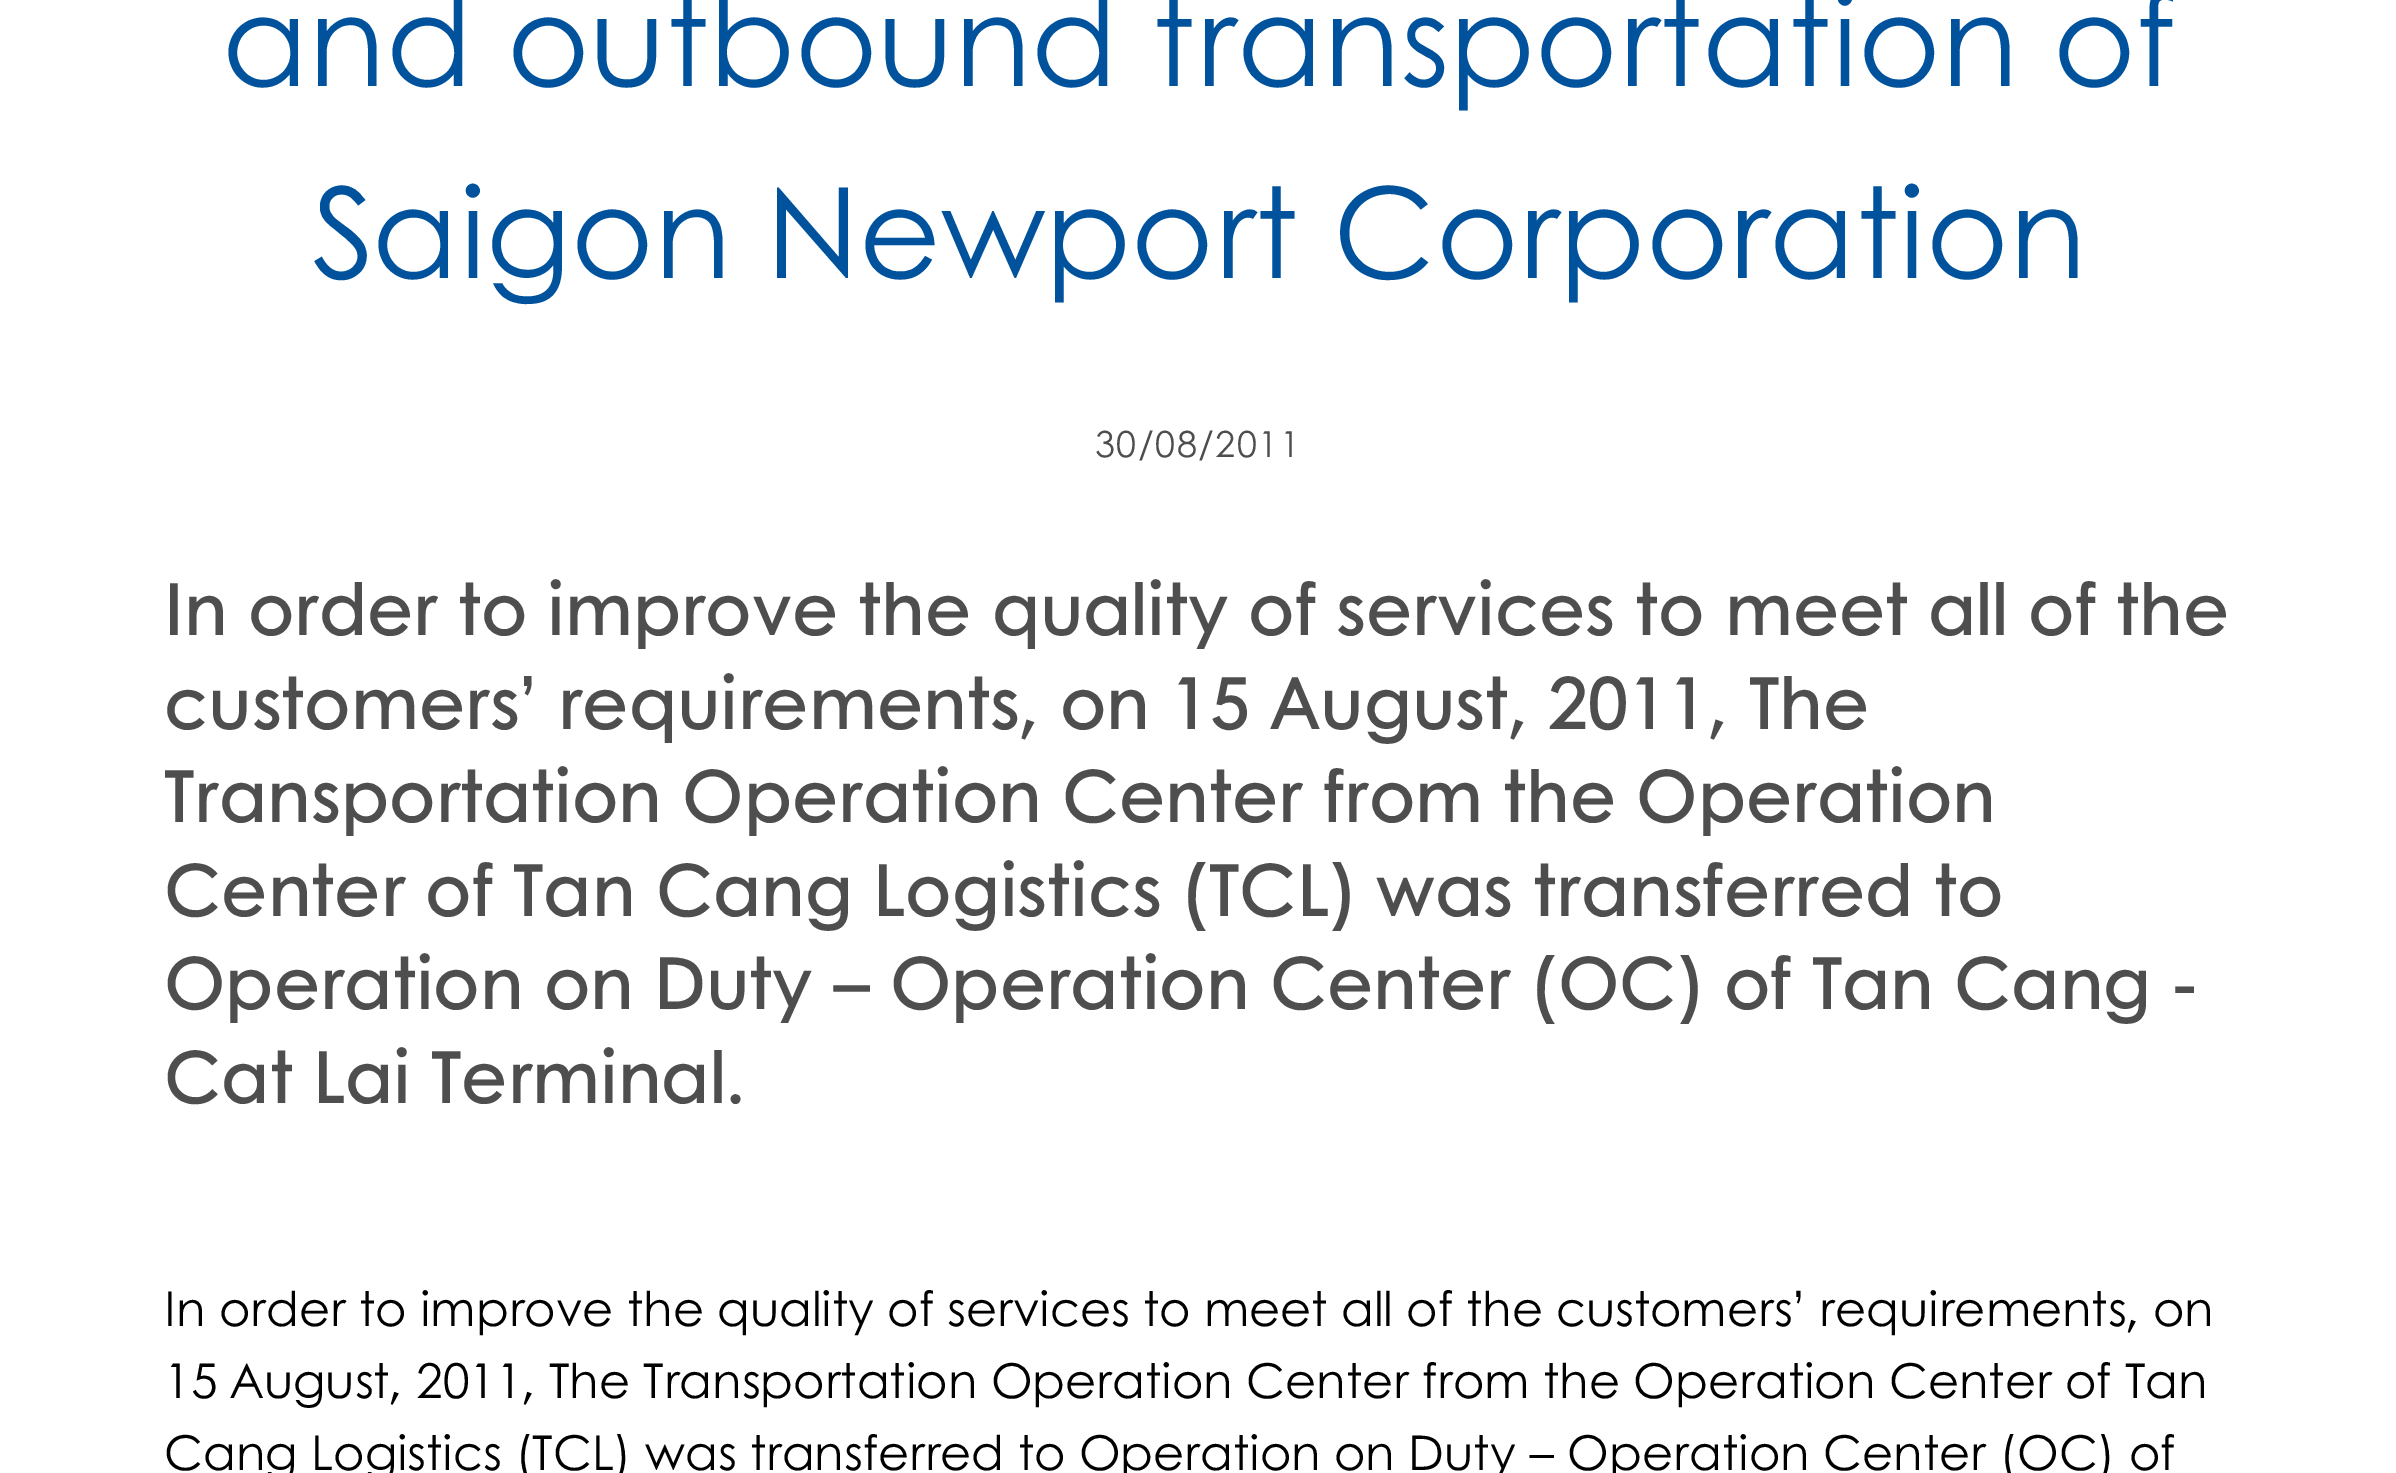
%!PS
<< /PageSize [2396 1473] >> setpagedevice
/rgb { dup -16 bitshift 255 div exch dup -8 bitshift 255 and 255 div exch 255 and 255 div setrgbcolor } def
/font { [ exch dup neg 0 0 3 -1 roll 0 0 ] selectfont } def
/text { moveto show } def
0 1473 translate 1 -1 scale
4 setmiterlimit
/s1 { /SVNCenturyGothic-Regular 126 font 16#00529C rgb } def
/s2 { /SVNCenturyGothic-SemiBold 72 font 16#4E4E4E rgb } def
/s3 { /SVNCenturyGothic-Regular 48 font 16#000000 rgb } def
16#FFFFFF rgb
0 0 2396 1473 rectfill
s1
(and outbound transportation of) 222 86 text
(Saigon Newport Corporation) 311 278 text
/SVNCenturyGothic-Regular 36 font
16#4E4E4E rgb
1095 457 moveto 1.5 0 (30/08/2011) ashow
s2
(In order to improve the quality of services to meet all of the) 164 635 text
(customers’ requirements, on 15 August, 2011, The) 164 729 text
(Transportation Operation Center from the Operation) 164 822 text
(Center of Tan Cang Logistics \(TCL\) was transferred to) 164 916 text
(Operation on Duty – Operation Center \(OC\) of Tan Cang -) 164 1009 text
(Cat Lai Terminal.) 164 1103 text
s3
(In order to improve the quality of services to meet all of the customers’ requirements, on) 164 1326 text
(15 August, 2011, The Transportation Operation Center from the Operation Center of Tan) 164 1398 text
(Cang Logistics \(TCL\) was transferred to Operation on Duty – Operation Center \(OC\) of) 164 1470 text
showpage
